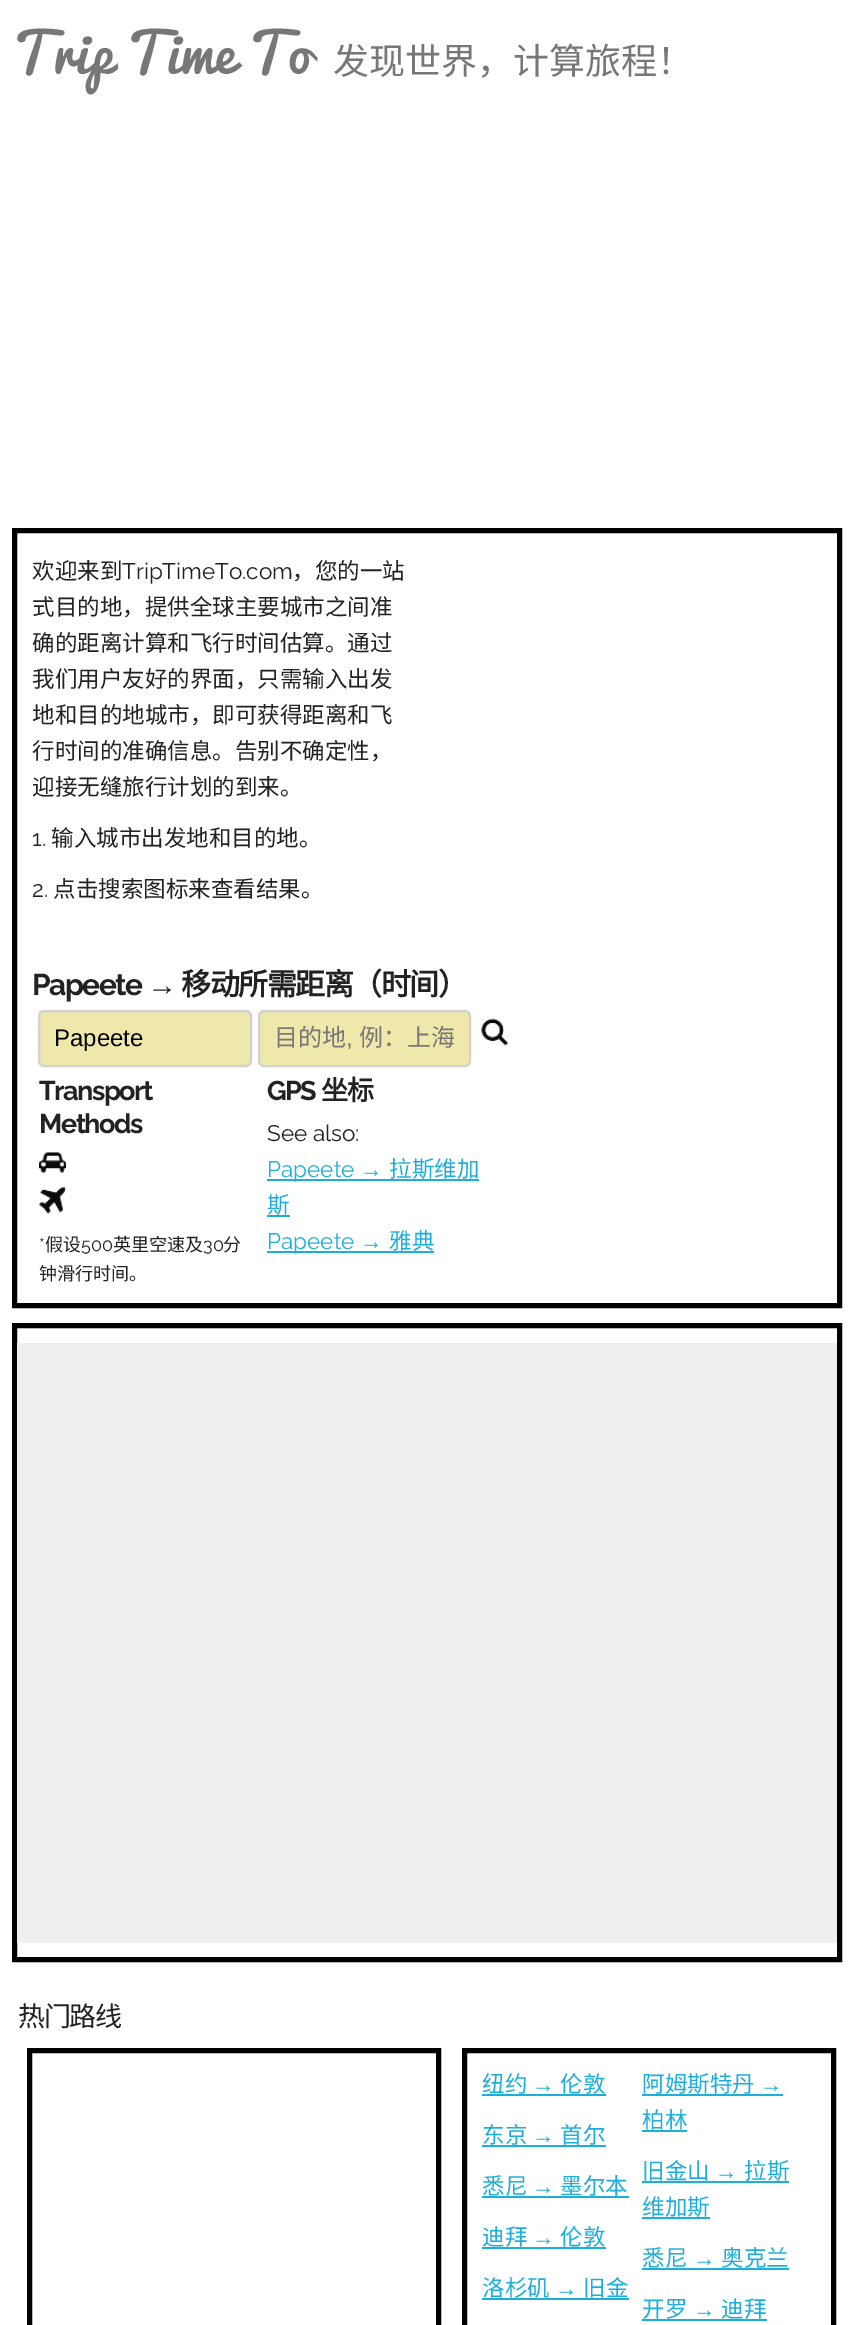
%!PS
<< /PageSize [853 2325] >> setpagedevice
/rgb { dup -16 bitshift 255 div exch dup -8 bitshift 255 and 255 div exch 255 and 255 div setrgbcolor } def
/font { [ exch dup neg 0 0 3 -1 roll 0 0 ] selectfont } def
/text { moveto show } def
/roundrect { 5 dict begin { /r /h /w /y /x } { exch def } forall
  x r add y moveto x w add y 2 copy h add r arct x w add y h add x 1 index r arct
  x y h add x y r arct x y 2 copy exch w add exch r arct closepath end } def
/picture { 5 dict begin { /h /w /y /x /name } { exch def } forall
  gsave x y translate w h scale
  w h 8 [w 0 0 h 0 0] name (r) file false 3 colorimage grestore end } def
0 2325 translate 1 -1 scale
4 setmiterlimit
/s1 { /Pacifico-Regular 54 font 16#777777 rgb } def
/s2 { /NotoSansCJKSC-Regular 36 font 16#777777 rgb } def
/s3 { /NotoSansCJKSC-Regular 22.5 font 16#222222 rgb } def
/s4 { /Raleway-Regular 22.5 font 16#222222 rgb } def
/s5 { /LiberationSans-Regular 24 font 16#000000 rgb } def
/s6 { /NotoSansCJKSC-Regular 24 font 16#777777 rgb } def
/s7 { /LiberationSans-Regular 24 font 16#777777 rgb } def
/s8 { /Raleway-Regular 18 font 16#222222 rgb } def
/s9 { /NotoSansCJKSC-Regular 18 font 16#222222 rgb } def
/s10 { /Raleway-Regular 22.5 font 16#1EAEDB rgb } def
/s11 { /LiberationSans-Regular 22.5 font 16#1EAEDB rgb } def
/s12 { /NotoSansCJKSC-Regular 22.5 font 16#1EAEDB rgb } def
16#FFFFFF rgb
0 0 853 2325 rectfill
s1
(Trip Time To) 12 74 text
s2
(发现世界，计算旅程！) 333 74 text
16#000000 rgb
5 setlinewidth
14.5 530.5 825 775 rectstroke
s3
(欢迎来到) 32 579 text
s4
(TripTimeTo.com) 122 579 text
s3
(，您的一站) 292 579 text
(式目的地，提供全球主要城市之间准) 32 615 text
(确的距离计算和飞行时间估算。通过) 32 651 text
(我们用户友好的界面，只需输入出发) 32 687 text
(地和目的地城市，即可获得距离和飞) 32 723 text
(行时间的准确信息。告别不确定性，) 32 759 text
(迎接无缝旅行计划的到来。) 32 795 text
s4
(1.) 32 846 text
s3
(输入城市出发地和目的地。) 51 846 text
s4
(2.) 32 897 text
s3
(点击搜索图标来查看结果。) 53 897 text
/Raleway-Bold 30 font
32 995 moveto -1.5 0 (Papeete) ashow
/LiberationSans-Bold 30 font
147 995 moveto -1.5 0 (→) ashow
/NotoSansCJKSC-Bold 30 font
181 995 moveto -1.5 0 (移动所需距离（时间）) ashow
16#EEE8AA rgb
39 1011 212 55 5 roundrect gsave fill grestore
16#D1D1D1 rgb
2 setlinewidth
stroke
s5
(Papeete) 54 1046 text
16#EEE8AA rgb
259 1011 211 55 5 roundrect gsave fill grestore
16#D1D1D1 rgb
stroke
s6
(目的地) 274 1046 text
s7
(,) 346 1046 text
s6
(例：上海) 359 1046 text
(pic1.raw) 481 1018 27 28 picture
/Raleway-Bold 27 font
16#222222 rgb
39 1100 moveto -1.5 0 (Transport) ashow
39 1133 moveto -1.5 0 (Methods) ashow
(pic2.raw) 39 1152 27 21 picture
(pic3.raw) 39 1186 27 28 picture
s8
(*) 39 1251 text
s9
(假设) 45 1251 text
s8
(500) 81 1251 text
s9
(英里空速及) 113 1251 text
s8
(30) 203 1251 text
s9
(分) 223 1251 text
(钟滑行时间。) 39 1280 text
/Raleway-Bold 27 font
267 1100 moveto -1.5 0 (GPS) ashow
/NotoSansCJKSC-Bold 27 font
321 1100 moveto -1.5 0 (坐标) ashow
s4
(See also:) 267 1141 text
16#1EAEDB rgb
267 1179 212 2 rectfill
(Papeete) 267 1177 text
s11
(→) 360 1177 text
s12
(拉斯维加) 389 1177 text
267 1215 23 2 rectfill
(斯) 267 1213 text
267 1251 167 2 rectfill
s10
(Papeete) 267 1249 text
s11
(→) 360 1249 text
s12
(雅典) 389 1249 text
16#000000 rgb
5 setlinewidth
14.5 1325.5 825 634 rectstroke
16#EFEFEF rgb
17 1343 820 600 rectfill
/NotoSansCJKSC-Regular 27 font
16#222222 rgb
18 2026 moveto -1.5 0 (热门路线) ashow
16#000000 rgb
29.5 2050.5 409 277 rectstroke
464.5 2050.5 369 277 rectstroke
s12
(纽约) 482 2092 text
s11
(→) 532 2092 text
482 2094 124 2 rectfill
s12
(伦敦) 560 2092 text
(东京) 482 2143 text
s11
(→) 532 2143 text
482 2145 124 2 rectfill
s12
(首尔) 560 2143 text
(悉尼) 482 2194 text
s11
(→) 532 2194 text
482 2196 147 2 rectfill
s12
(墨尔本) 560 2194 text
(迪拜) 482 2245 text
s11
(→) 532 2245 text
482 2247 124 2 rectfill
s12
(伦敦) 560 2245 text
(洛杉矶) 482 2296 text
s11
(→) 555 2296 text
482 2298 147 2 rectfill
s12
(旧金) 583 2296 text
642 2094 141 2 rectfill
(阿姆斯特丹) 642 2092 text
s11
(→) 760 2092 text
s12
(柏林) 642 2128 text
642 2130 45 2 rectfill
(旧金山) 642 2179 text
s11
(→) 715 2179 text
642 2181 147 2 rectfill
s12
(拉斯) 744 2179 text
642 2217 68 2 rectfill
(维加斯) 642 2215 text
(悉尼) 642 2266 text
s11
(→) 693 2266 text
642 2268 147 2 rectfill
s12
(奥克兰) 721 2266 text
(开罗) 642 2317 text
s11
(→) 693 2317 text
642 2319 125 2 rectfill
s12
(迪拜) 721 2317 text
showpage
